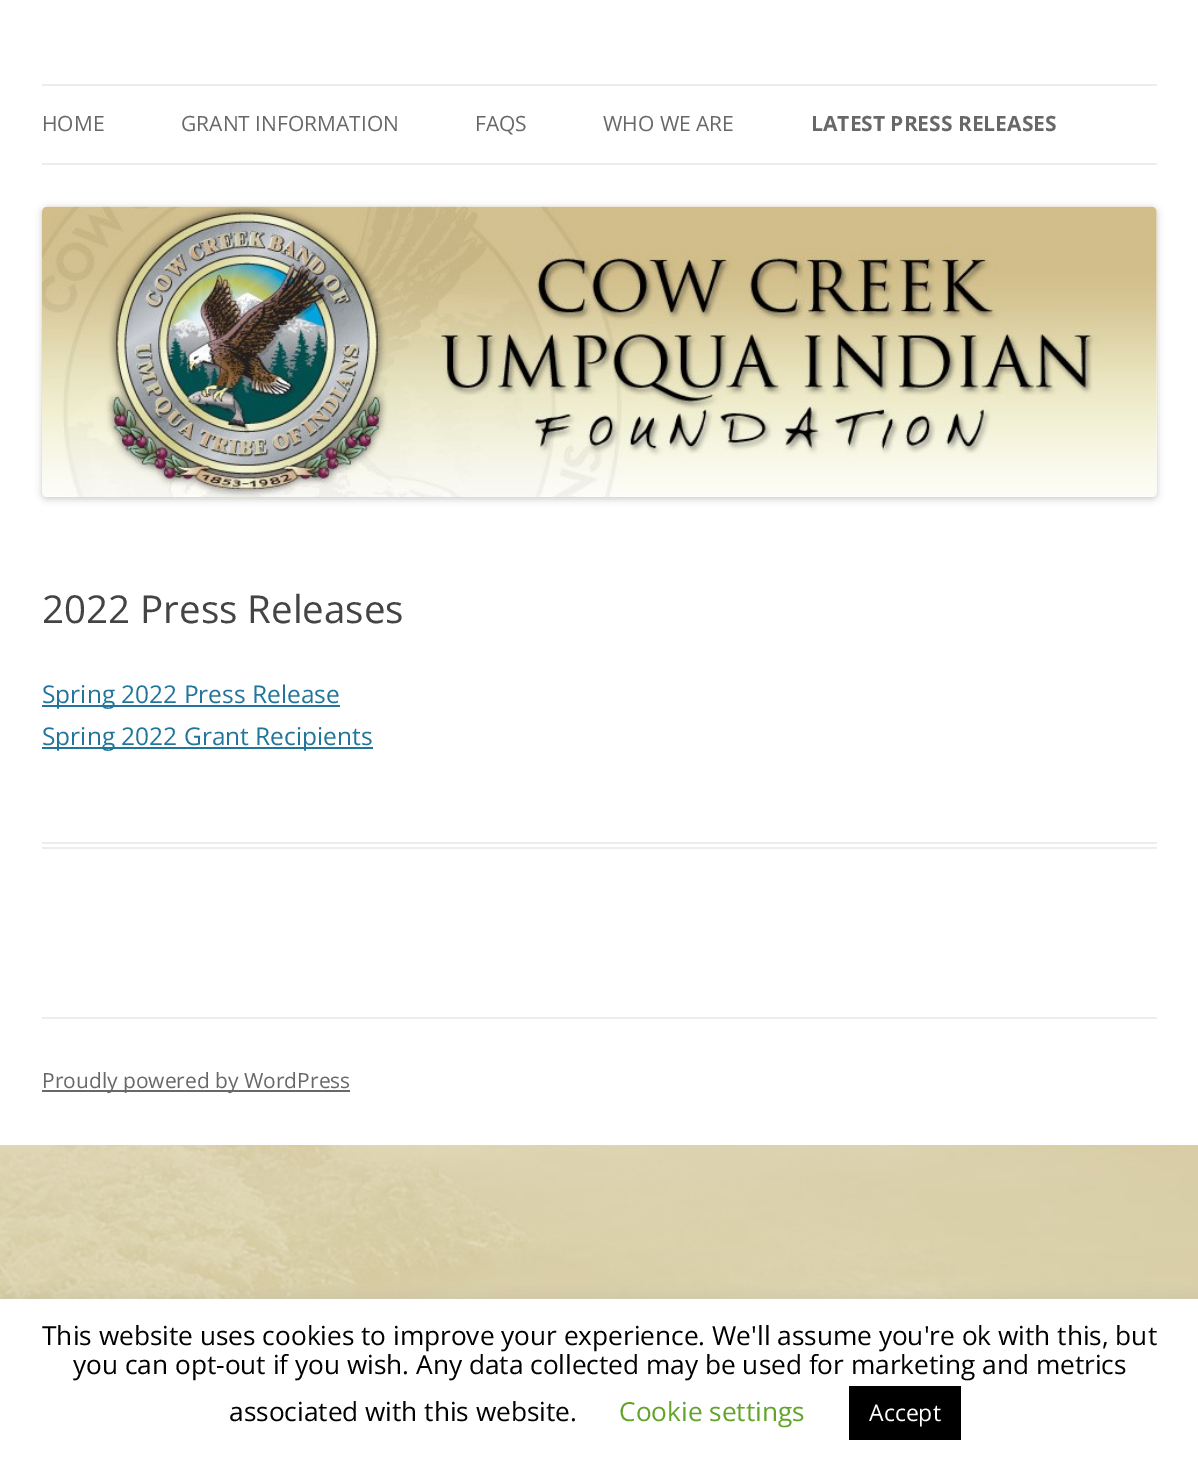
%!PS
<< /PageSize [1198 1469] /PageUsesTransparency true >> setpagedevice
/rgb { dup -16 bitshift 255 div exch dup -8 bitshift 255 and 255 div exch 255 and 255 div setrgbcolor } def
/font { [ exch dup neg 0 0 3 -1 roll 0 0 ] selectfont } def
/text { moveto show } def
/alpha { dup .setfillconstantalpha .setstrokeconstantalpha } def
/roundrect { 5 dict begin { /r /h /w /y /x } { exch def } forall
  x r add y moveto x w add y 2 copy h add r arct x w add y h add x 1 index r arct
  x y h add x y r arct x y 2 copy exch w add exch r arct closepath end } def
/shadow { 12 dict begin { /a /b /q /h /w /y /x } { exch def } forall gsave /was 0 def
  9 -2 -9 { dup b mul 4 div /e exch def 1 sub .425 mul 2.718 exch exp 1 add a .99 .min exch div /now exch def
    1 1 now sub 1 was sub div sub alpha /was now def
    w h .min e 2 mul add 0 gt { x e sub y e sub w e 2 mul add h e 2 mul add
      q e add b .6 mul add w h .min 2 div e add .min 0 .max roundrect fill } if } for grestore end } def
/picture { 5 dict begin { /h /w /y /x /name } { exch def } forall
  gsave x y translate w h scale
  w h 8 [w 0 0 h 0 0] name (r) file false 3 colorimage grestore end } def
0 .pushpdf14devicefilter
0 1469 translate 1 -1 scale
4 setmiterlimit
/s1 { /OpenSans-Regular 21 font 16#686868 rgb } def
/s2 { /OpenSans-Bold 21 font 16#686868 rgb } def
/s3 { /OpenSans-Regular 38.5 font 16#444444 rgb } def
/s4 { /OpenSans-Regular 24.5 font 16#21759B rgb } def
/s5 { /OpenSans-Regular 26.25 font 16#000000 rgb } def
/s6 { /OpenSans-Regular 26.25 font 16#62A329 rgb } def
/s7 { /OpenSans-Regular 23 font 16#FFFFFF rgb } def
16#FFFFFF rgb
0 0 1198 1469 rectfill
(pic1.raw) 0 1145 1198 154 picture
16#EDEDED rgb
42 84 1115 2 rectfill
42 163 1115 2 rectfill
s1
(HOME) 42 131 text
(GRANT INFORMATION) 181 131 text
(FAQS) 475 131 text
(WHO WE ARE) 603 131 text
s2
(LATEST PRESS RELEASES) 811 131 text
16#000000 rgb
42 208 1115 291 5 3.5 0.2 shadow
(pic2.raw) 42 206 1115 291 picture
16#EDEDED rgb
42 842 1115 2 rectfill
42 847 1115 2 rectfill
s3
(2022 Press Releases) 42 623 text
16#21759B rgb
42 705 298 2 rectfill
s4
(Spring 2022 Press Release) 42 703 text
42 747 331 2 rectfill
(Spring 2022 Grant Recipients) 42 745 text
16#EDEDED rgb
42 1017 1115 2 rectfill
16#686868 rgb
42 1090 308 2 rectfill
s1
(Proudly powered by WordPress) 42 1088 text
16#ACABAB rgb
0 1297 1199 171 0 9 0.3 shadow
16#FFFFFF rgb
0 1299 1198 170 rectfill
s5
(This website uses cookies to improve your experience. We'll assume you're ok with this, but) 42 1345 text
(you can opt-out if you wish. Any data collected may be used for marketing and metrics) 73 1374 text
(associated with this website.) 229 1421 text
s6
(Cookie settings) 619 1421 text
16#000000 rgb
849 1386 112 54 rectfill
s7
(Accept) 869 1421 text
.poppdf14devicefilter showpage
